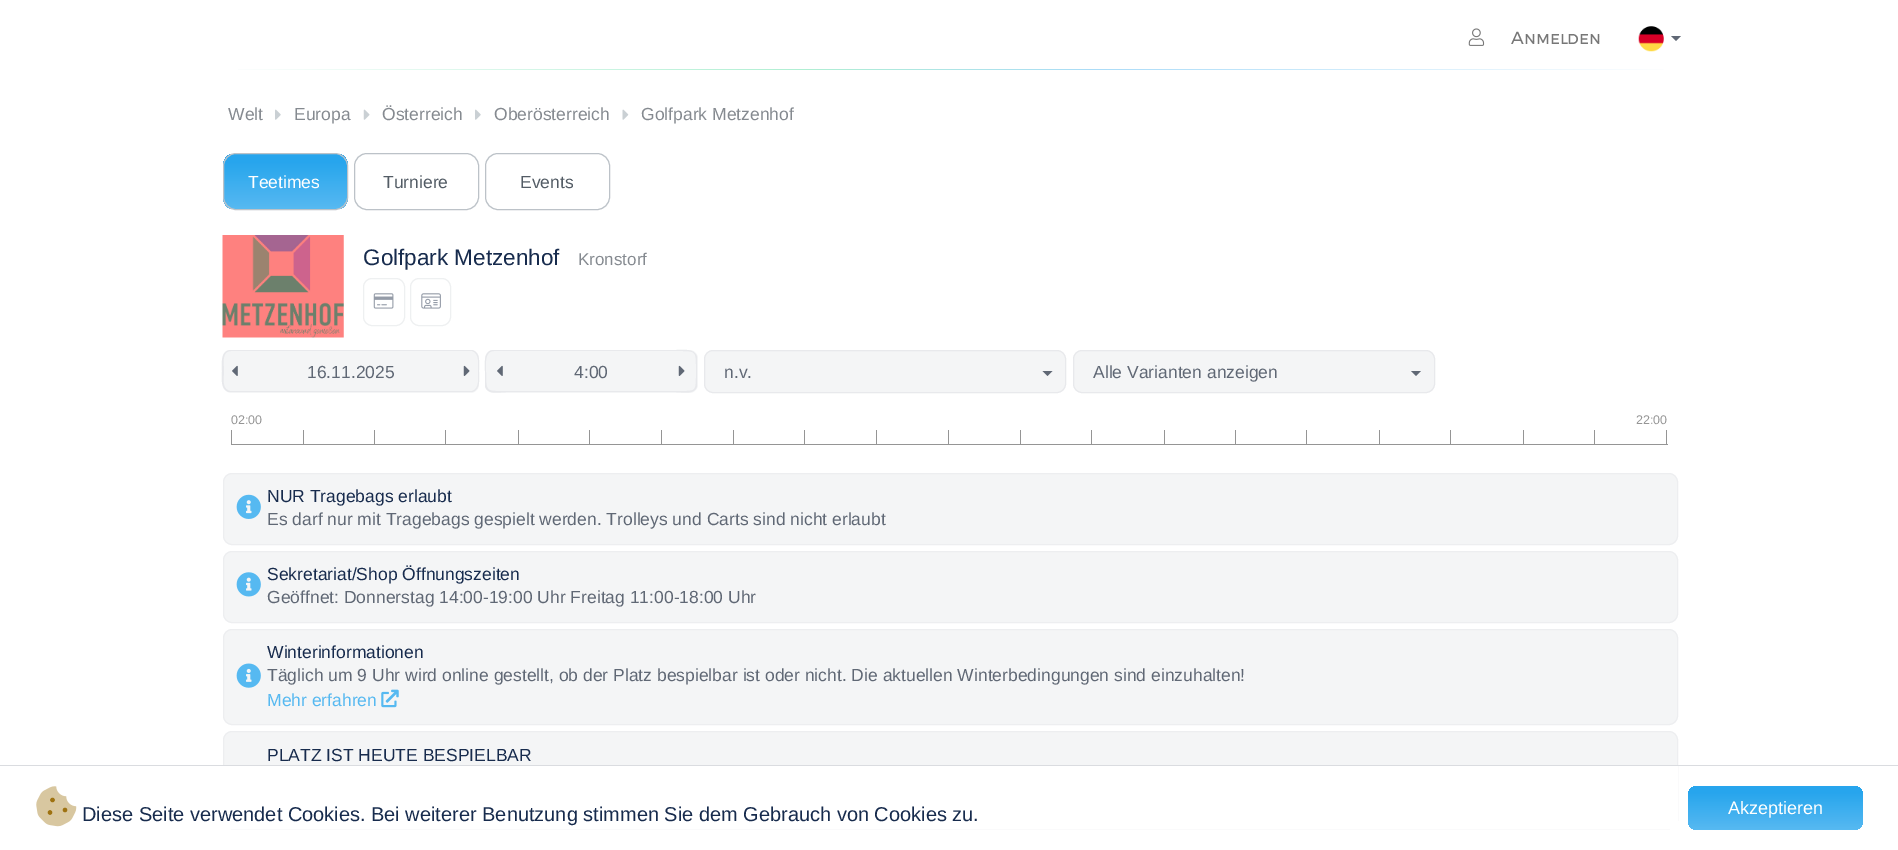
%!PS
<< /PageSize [1898 850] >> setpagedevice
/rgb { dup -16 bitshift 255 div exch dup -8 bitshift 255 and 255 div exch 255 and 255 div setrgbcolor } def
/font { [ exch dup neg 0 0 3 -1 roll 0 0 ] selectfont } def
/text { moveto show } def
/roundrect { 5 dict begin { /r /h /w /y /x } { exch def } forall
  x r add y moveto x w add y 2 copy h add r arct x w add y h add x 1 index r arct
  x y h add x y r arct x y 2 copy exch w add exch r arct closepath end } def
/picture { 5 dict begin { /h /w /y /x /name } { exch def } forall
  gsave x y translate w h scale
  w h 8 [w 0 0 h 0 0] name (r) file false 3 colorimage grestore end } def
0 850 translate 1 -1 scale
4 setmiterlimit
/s1 { /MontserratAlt-Regular 17.5 font 16#777777 rgb } def
/s2 { /LiberationSans-Regular 17.5 font 16#858A90 rgb } def
/s3 { /LiberationSans-Regular 17.5 font 16#FFFFFF rgb } def
/s4 { /LiberationSans-Regular 17.5 font 16#535C65 rgb } def
/s5 { /LiberationSans-Regular 22.5 font 16#172B4D rgb } def
/s6 { /LiberationSans-Regular 17 font 16#858A90 rgb } def
/s7 { /LiberationSans-Regular 17.5 font 16#606875 rgb } def
/s8 { /LiberationSans-Regular 12.5 font 16#959595 rgb } def
/s9 { /LiberationSans-Regular 17.5 font 16#172B4D rgb } def
/s10 { /LiberationSans-Regular 17.5 font 16#56B9F1 rgb } def
/s11 { /LiberationSans-Regular 20 font 16#172B4D rgb } def
/s12 { /LiberationSans-Regular 18 font 16#FFFFFF rgb } def
16#FFFFFF rgb
0 0 1898 850 rectfill
(pic1.raw) 1468 28 17 18 picture
s1
(Anmelden) 1511 44 text
(pic2.raw) 1638 26 26 26 picture
16#606875 rgb
1671 36 moveto 1681 36 lineto 1676 41 lineto closepath fill
gsave 238 69 moveto 1664 69 lineto 1664 70 lineto 238 70 lineto closepath clip newpath
<< /ShadingType 2 /ColorSpace /DeviceRGB /Coords [219 69 1681 69] /Extend [true true] /Function << /FunctionType 3 /Domain [0 1] /Functions [<< /FunctionType 2 /Domain [0 1] /C0 [1 1 1] /C1 [0.69 0.937 0.827] /N 1 >> << /FunctionType 2 /Domain [0 1] /C0 [0.69 0.937 0.827] /C1 [0.671 0.863 0.973] /N 1 >> << /FunctionType 2 /Domain [0 1] /C0 [0.671 0.863 0.973] /C1 [1 1 1] /N 1 >>] /Bounds [0.4 0.6] /Encode [0 1 0 1 0 1] >> >> shfill grestore
s2
(Welt) 228 120 text
(pic3.raw) 275 109 6 11 picture
(Europa) 294 120 text
(pic4.raw) 363 109 7 11 picture
(Österreich) 382 120 text
(pic3.raw) 475 109 6 11 picture
(Oberösterreich) 494 120 text
(pic5.raw) 622 109 7 11 picture
(Golfpark Metzenhof) 641 120 text
gsave
223 153 125 57 13 roundrect clip newpath
gsave 223 154 moveto 348 154 lineto 348 209 lineto 223 209 lineto closepath clip newpath
<< /ShadingType 2 /ColorSpace /DeviceRGB /Coords [285 154 285 209] /Extend [true true] /Function << /FunctionType 3 /Domain [0 1] /Functions [<< /FunctionType 2 /Domain [0 1] /C0 [0.153 0.647 0.929] /C1 [0.153 0.647 0.929] /N 1 >> << /FunctionType 2 /Domain [0 1] /C0 [0.153 0.647 0.929] /C1 [0.337 0.725 0.945] /N 1 >> << /FunctionType 2 /Domain [0 1] /C0 [0.337 0.725 0.945] /C1 [0.337 0.725 0.945] /N 1 >>] /Bounds [0.14 0.98] /Encode [0 1 0 1 0 1] >> >> shfill grestore
grestore
16#BCC2C8 rgb
223.5 153.5 124 56 12.5 roundrect stroke
s3
(Teetimes) 248 188 text
16#BCC2C8 rgb
354.5 153.5 124 56 12.5 roundrect stroke
s4
(Turniere) 383 188 text
16#BCC2C8 rgb
485.5 153.5 124 56 12.5 roundrect stroke
s4
(Events) 520 188 text
(pic6.raw) 222 235 122 103 picture
s5
(Golfpark Metzenhof) 363 265 text
s6
(Kronstorf) 578 265 text
16#EEF0F1 rgb
363.5 278.5 41 47 8.5 roundrect stroke
(pic7.raw) 373 293 21 16 picture
410.5 278.5 40 47 8.5 roundrect stroke
(pic8.raw) 421 293 20 16 picture
16#F4F5F6 rgb
232 350 moveto 238 350 lineto 238 393 lineto 232 393 lineto 227 393 223 389 223 384 curveto 223 359 lineto 223 354 227 350 232 350 curveto closepath fill
16#E8E9EC rgb
231 350 moveto 238 350 lineto 238 392 lineto 229 392 lineto 220 390 222 378 222 371 curveto 222 364 220 350 231 350 curveto closepath 231 351 moveto 238 351 lineto 238 391 lineto 230 391 lineto 221 389 224 377 224 371 curveto 224 365 221 351 231 351 curveto closepath eofill
(pic9.raw) 232 365 6 11 picture
16#F4F5F6 rgb
238 351 226 42 rectfill
16#E8E9EC rgb
238 350 226 1 rectfill
238 391 226 1 rectfill
s7
(16.11.2025) 307 378 text
16#F4F5F6 rgb
464 350 moveto 470 350 lineto 475 350 479 354 479 359 curveto 479 384 lineto 479 389 475 393 470 393 curveto 464 393 lineto closepath fill
16#E8E9EC rgb
464 350 moveto 472 350 lineto 481 352 479 364 479 371 curveto 479 378 481 390 472 392 curveto 464 392 lineto closepath 464 351 moveto 472 351 lineto 480 353 478 365 478 371 curveto 478 377 480 389 472 391 curveto 464 391 lineto closepath eofill
(pic10.raw) 463 365 7 11 picture
16#F4F5F6 rgb
494 350 moveto 506 350 lineto 506 393 lineto 494 393 lineto 489 393 485 389 485 384 curveto 485 359 lineto 485 354 489 350 494 350 curveto closepath fill
16#E8E9EC rgb
494 350 moveto 506 350 lineto 506 392 lineto 499 392 487 395 485 386 curveto 485 371 lineto 485 364 483 350 494 350 curveto closepath 494 351 moveto 506 351 lineto 506 391 lineto 486 391 486 393 486 371 curveto 486 365 484 351 494 351 curveto closepath eofill
(pic9.raw) 497 365 6 11 picture
16#F4F5F6 rgb
506 351 170 42 rectfill
16#E8E9EC rgb
506 350 170 1 rectfill
506 391 170 1 rectfill
s7
(4:00) 574 378 text
16#F4F5F6 rgb
676 350 moveto 689 350 lineto 694 350 698 354 698 359 curveto 698 384 lineto 698 389 694 393 689 393 curveto 676 393 lineto closepath fill
16#E8E9EC rgb
676 350 moveto 683 350 695 348 697 357 curveto 697 386 lineto 695 395 683 392 676 392 curveto closepath 676 351 moveto 697 351 696 350 696 371 curveto 696 393 697 391 676 391 curveto closepath eofill
(pic10.raw) 678 365 7 11 picture
16#F4F5F6 rgb
704.5 350.5 361 42 8.5 roundrect gsave fill grestore
16#E8E9EC rgb
stroke
s7
(n.v.) 724 378 text
1042.5 371 moveto 1052.5 371 lineto 1047.5 376 lineto closepath fill
16#F4F5F6 rgb
1073.5 350.5 361 42 8.5 roundrect gsave fill grestore
16#E8E9EC rgb
stroke
s7
(Alle Varianten anzeigen) 1093 378 text
1411 371 moveto 1421 371 lineto 1416 376 lineto closepath fill
s8
(02:00) 231 424 text
(22:00) 1636 424 text
231 444 59 1 rectfill
231 430 1 15 rectfill
303 430 1 15 rectfill
290 444 73 1 rectfill
374 430 1 15 rectfill
363 444 71 1 rectfill
445 430 1 15 rectfill
434 444 72 1 rectfill
518 430 1 15 rectfill
506 444 72 1 rectfill
589 430 1 15 rectfill
578 444 72 1 rectfill
661 430 1 15 rectfill
650 444 71 1 rectfill
733 430 1 15 rectfill
721 444 72 1 rectfill
804 430 1 15 rectfill
793 444 72 1 rectfill
876 430 1 15 rectfill
865 444 71 1 rectfill
948 430 1 15 rectfill
936 444 73 1 rectfill
1020 430 1 15 rectfill
1009 444 71 1 rectfill
1091 430 1 15 rectfill
1080 444 73 1 rectfill
1164 430 1 15 rectfill
1153 444 71 1 rectfill
1235 430 1 15 rectfill
1224 444 71 1 rectfill
1306 430 1 15 rectfill
1295 444 73 1 rectfill
1379 430 1 15 rectfill
1368 444 71 1 rectfill
1450 430 1 15 rectfill
1439 444 72 1 rectfill
1523 430 1 15 rectfill
1511 444 72 1 rectfill
1594 430 1 15 rectfill
1583 444 71 1 rectfill
1666 430 1 15 rectfill
1654 444 14 1 rectfill
16#F4F5F6 rgb
223.5 473.5 1454 71 8.5 roundrect gsave fill grestore
16#EDEEF0 rgb
stroke
(pic11.raw) 236 494 25 25 picture
s9
(NUR Tragebags erlaubt) 267 502 text
s7
(Es darf nur mit Tragebags gespielt werden. Trolleys und Carts sind nicht erlaubt) 267 525 text
16#F4F5F6 rgb
223.5 551.5 1454 71 8.5 roundrect gsave fill grestore
16#EDEEF0 rgb
stroke
(pic12.raw) 236 572 25 25 picture
s9
(Sekretariat/Shop Öffnungszeiten) 267 580 text
s7
(Geöffnet: Donnerstag 14:00-19:00 Uhr Freitag 11:00-18:00 Uhr) 267 603 text
16#F4F5F6 rgb
223.5 629.5 1454 95 8.5 roundrect gsave fill grestore
16#EDEEF0 rgb
stroke
(pic13.raw) 236 663 25 25 picture
s9
(Winterinformationen) 267 658 text
s7
(Täglich um 9 Uhr wird online gestellt, ob der Platz bespielbar ist oder nicht. Die aktuellen Winterbedingungen sind einzuhalten!) 267 681 text
s10
(Mehr erfahren) 267 706 text
(pic14.raw) 381 689 18 19 picture
16#F4F5F6 rgb
223.5 731.5 1454 97 8.5 roundrect gsave fill grestore
16#EDEEF0 rgb
stroke
s9
(PLATZ IST HEUTE BESPIELBAR) 267 761 text
16#FFFFFF rgb
223 766 1455 63 rectfill
16#DADCE0 rgb
0 765 1898 1 rectfill
(pic16.raw) 47 797 21 18 picture
(pic15.raw) 36 786 41 41 picture
s11
(Diese Seite verwendet Cookies. Bei weiterer Benutzung stimmen Sie dem Gebrauch von Cookies zu.) 82 821 text
gsave 1688 786 175 44 9 roundrect clip newpath
<< /ShadingType 2 /ColorSpace /DeviceRGB /Coords [1775 786 1775 830] /Extend [true true] /Function << /FunctionType 3 /Domain [0 1] /Functions [<< /FunctionType 2 /Domain [0 1] /C0 [0.153 0.647 0.929] /C1 [0.153 0.647 0.929] /N 1 >> << /FunctionType 2 /Domain [0 1] /C0 [0.153 0.647 0.929] /C1 [0.337 0.725 0.945] /N 1 >> << /FunctionType 2 /Domain [0 1] /C0 [0.337 0.725 0.945] /C1 [0.337 0.725 0.945] /N 1 >>] /Bounds [0.14 0.98] /Encode [0 1 0 1 0 1] >> >> shfill grestore
s12
(Akzeptieren) 1728 814 text
showpage
